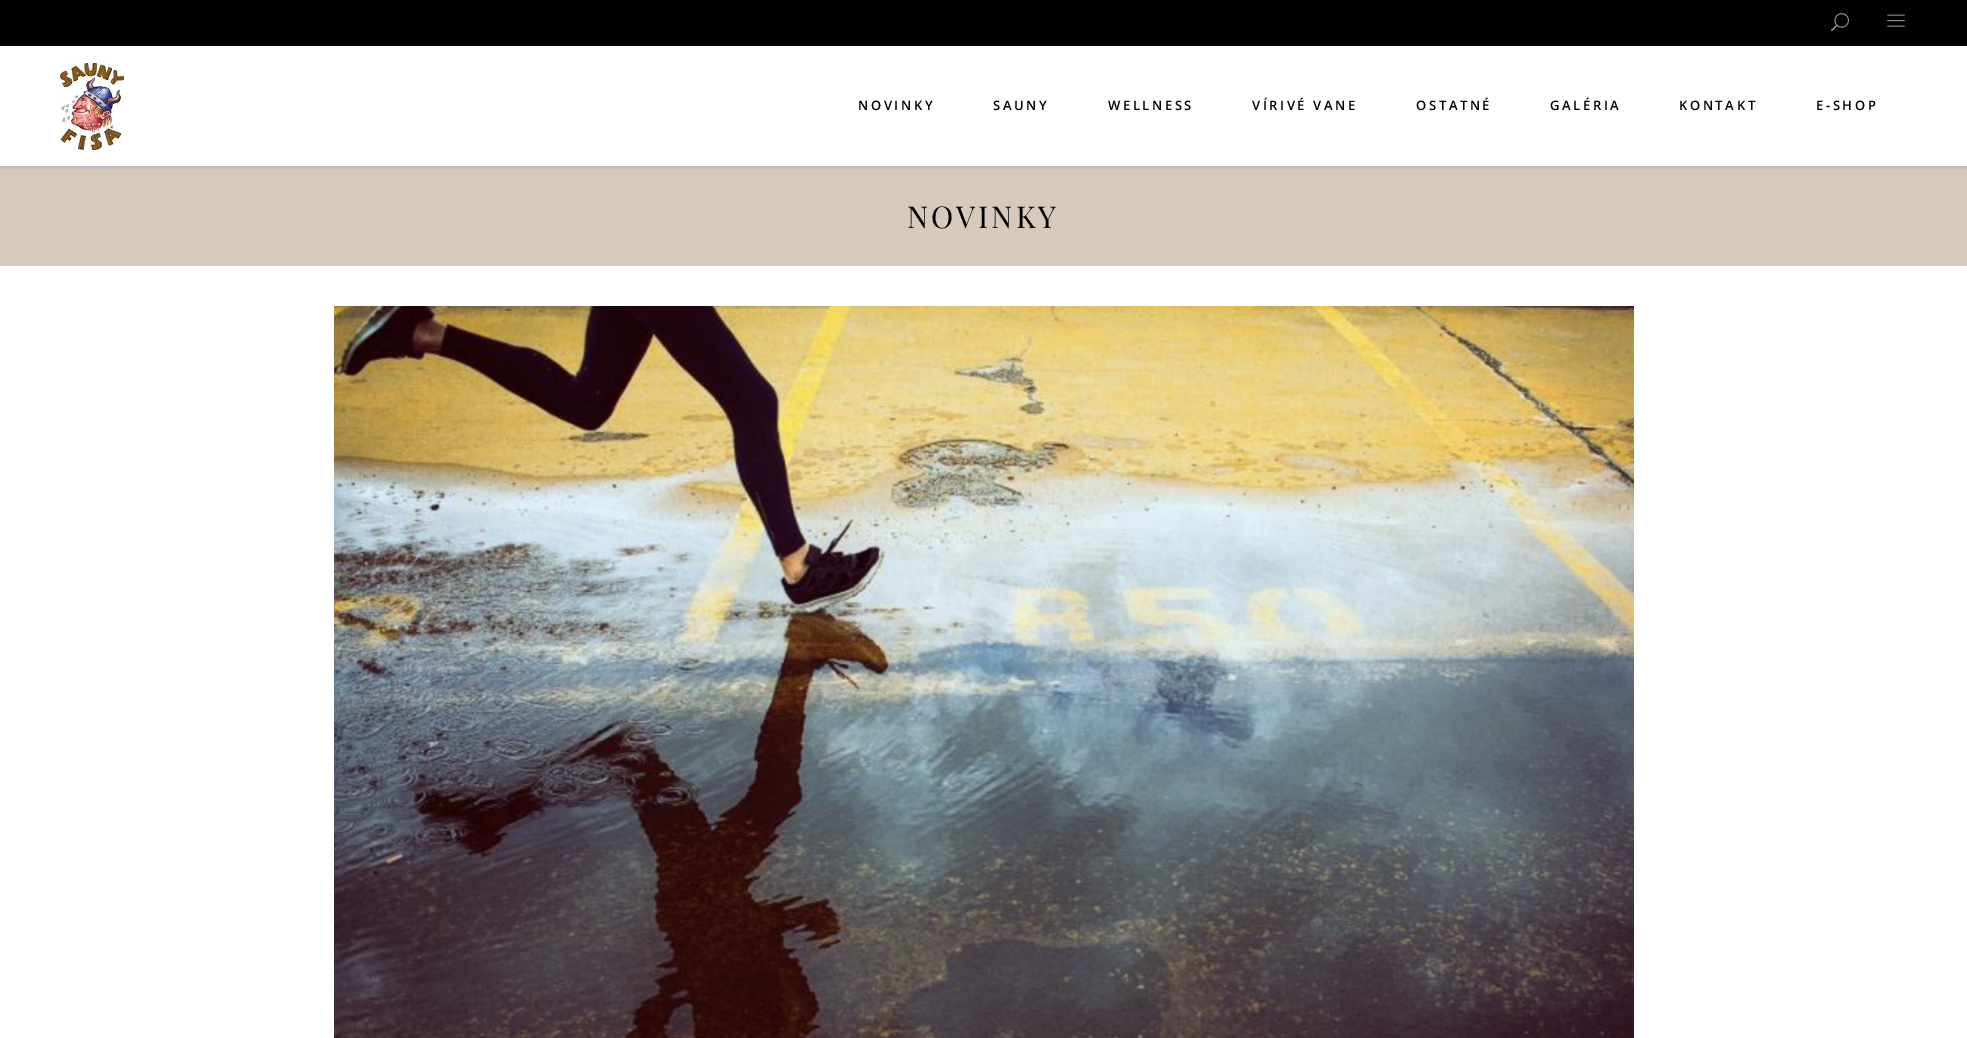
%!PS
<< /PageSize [1967 1038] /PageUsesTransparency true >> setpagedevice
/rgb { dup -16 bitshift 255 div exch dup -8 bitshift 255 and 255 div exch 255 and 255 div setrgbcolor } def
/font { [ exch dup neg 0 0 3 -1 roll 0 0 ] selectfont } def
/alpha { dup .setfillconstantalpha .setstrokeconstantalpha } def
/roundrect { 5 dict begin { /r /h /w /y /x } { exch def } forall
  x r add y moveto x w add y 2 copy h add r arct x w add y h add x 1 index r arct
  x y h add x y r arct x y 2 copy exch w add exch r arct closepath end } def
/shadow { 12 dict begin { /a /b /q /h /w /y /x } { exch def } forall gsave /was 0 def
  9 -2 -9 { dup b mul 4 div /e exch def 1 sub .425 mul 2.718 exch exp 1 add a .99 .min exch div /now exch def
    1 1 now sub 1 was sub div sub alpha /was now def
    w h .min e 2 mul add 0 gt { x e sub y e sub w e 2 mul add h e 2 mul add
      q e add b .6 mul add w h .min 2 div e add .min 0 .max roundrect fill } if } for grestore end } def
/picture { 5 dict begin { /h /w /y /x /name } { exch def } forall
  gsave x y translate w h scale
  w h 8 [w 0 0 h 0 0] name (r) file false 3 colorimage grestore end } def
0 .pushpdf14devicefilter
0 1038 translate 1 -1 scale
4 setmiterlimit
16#FFFFFF rgb
0 0 1967 1038 rectfill
16#D6CABC rgb
0 166 1967 100 rectfill
gsave
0 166 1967 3 rectclip
16#000000 rgb
0 47 1967 120 0 1.5 0.15 shadow
grestore
16#000000 rgb
0 0 1967 46 rectfill
(pic1.raw) 1831 13 18 19 picture
(pic2.raw) 1887 14 18 13 picture
(pic3.raw) 60 63 64 87 picture
/OpenSans-SemiBold 13 font
858 110 moveto 2.6 0 (NOVINKY) ashow
993 110 moveto 2.6 0 (SAUNY) ashow
1108 110 moveto 2.6 0 (WELLNESS) ashow
1252 110 moveto 2.6 0 (VÍRIVÉ VANE) ashow
1416 110 moveto 2.6 0 (OSTATNÉ) ashow
1550 110 moveto 2.6 0 (GALÉRIA) ashow
1679 110 moveto 2.6 0 (KONTAKT) ashow
1816 110 moveto 2.6 0 (E-SHOP) ashow
/PlayfairDisplay-Regular 30 font
907 228 moveto 3 0 (NOVINKY) ashow
(pic4.raw) 334 306 1300 732 picture
.poppdf14devicefilter showpage
